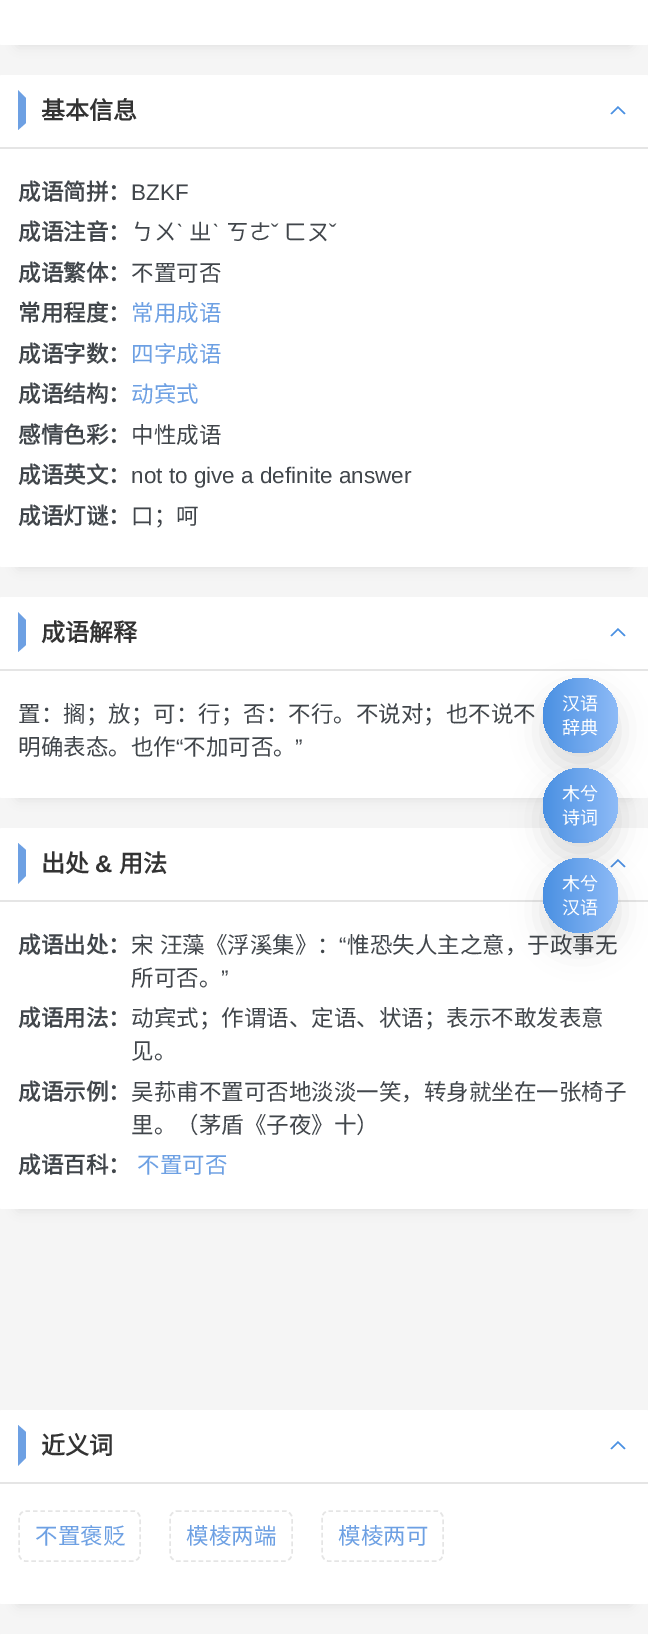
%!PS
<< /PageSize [648 1641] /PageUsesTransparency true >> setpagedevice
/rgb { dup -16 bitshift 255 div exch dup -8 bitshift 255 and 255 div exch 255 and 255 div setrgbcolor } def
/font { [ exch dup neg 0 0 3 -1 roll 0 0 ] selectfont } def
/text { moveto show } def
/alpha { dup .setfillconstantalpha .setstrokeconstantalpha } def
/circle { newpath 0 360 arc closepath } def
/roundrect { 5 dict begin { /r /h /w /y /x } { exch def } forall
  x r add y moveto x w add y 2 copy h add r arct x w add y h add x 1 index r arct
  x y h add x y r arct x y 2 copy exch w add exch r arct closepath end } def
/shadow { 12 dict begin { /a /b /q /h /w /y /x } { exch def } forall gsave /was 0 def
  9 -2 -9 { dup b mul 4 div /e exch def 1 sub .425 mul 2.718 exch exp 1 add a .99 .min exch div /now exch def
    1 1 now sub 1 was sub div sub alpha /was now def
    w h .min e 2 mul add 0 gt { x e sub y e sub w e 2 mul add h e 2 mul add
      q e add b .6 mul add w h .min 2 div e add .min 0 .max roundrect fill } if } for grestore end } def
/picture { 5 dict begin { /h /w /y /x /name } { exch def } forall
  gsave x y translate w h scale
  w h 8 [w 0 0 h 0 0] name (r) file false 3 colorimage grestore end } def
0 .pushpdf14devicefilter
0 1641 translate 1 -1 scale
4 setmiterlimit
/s1 { /NotoSansCJKSC-Bold 24 font 16#333333 rgb } def
/s2 { /NotoSansCJKSC-Bold 22.5 font 16#41464B rgb } def
/s3 { /LiberationSans-Regular 22.5 font 16#41464B rgb } def
/s4 { /NotoSansCJKSC-Regular 22.5 font 16#41464B rgb } def
/s5 { /NotoSansCJKSC-Regular 22.5 font 16#6DA0E3 rgb } def
/s6 { /LiberationSans-Bold 24 font 16#333333 rgb } def
/s7 { /NotoSansCJKSC-Regular 18 font 16#FFFFFF rgb } def
16#F5F5F5 rgb
0 0 648 1641 rectfill
16#000000 rgb
18 -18 612 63 0 6 0.1 shadow
16#FFFFFF rgb
0 -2 648 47 1.5 roundrect fill
16#000000 rgb
18 111 612 456 0 6 0.1 shadow
16#FFFFFF rgb
0 75 648 492 1.5 roundrect fill
16#E5E5E5 rgb
0 147 648 2 rectfill
s1
(基本信息) 41 119 text
16#6DA0E3 rgb
18 130 moveto 18 90 lineto 26 98 lineto 26 123 lineto closepath fill
(pic1.raw) 610 106 16 9 picture
s2
(成语简拼：) 18 200 text
s3
(BZKF) 131 200 text
s2
(成语注音：) 18 240 text
s4
(ㄅㄨ) 131 240 text
s3
(ˋ) 176 240 text
s4
(ㄓ) 189 240 text
s3
(ˋ) 212 240 text
s4
(ㄎㄜ) 226 240 text
s3
(ˇ) 271 240 text
s4
(ㄈㄡ) 284 240 text
s3
(ˇ) 329 240 text
s2
(成语繁体：) 18 281 text
s4
(不置可否) 131 281 text
s2
(常用程度：) 18 321 text
s5
(常用成语) 131 321 text
s2
(成语字数：) 18 362 text
s5
(四字成语) 131 362 text
s2
(成语结构：) 18 402 text
s5
(动宾式) 131 402 text
s2
(感情色彩：) 18 443 text
s4
(中性成语) 131 443 text
s2
(成语英文：) 18 483 text
s3
(not to give a definite answer) 131 483 text
s2
(成语灯谜：) 18 524 text
s4
(口；呵) 131 524 text
16#000000 rgb
18 633 612 165 0 6 0.1 shadow
16#FFFFFF rgb
0 597 648 201 1.5 roundrect fill
16#E5E5E5 rgb
0 669 648 2 rectfill
s1
(成语解释) 41 641 text
16#6DA0E3 rgb
18 652 moveto 18 612 lineto 26 620 lineto 26 645 lineto closepath fill
(pic1.raw) 610 628 16 9 picture
s4
(置：搁；放；可：行；否：不行。不说对；也不说不) 18 722 text
(明确表态。也作) 18 755 text
s3
(“) 176 755 text
s4
(不加可否。) 183 755 text
s3
(”) 295 755 text
16#000000 rgb
18 864 612 345 0 6 0.1 shadow
16#FFFFFF rgb
0 828 648 381 1.5 roundrect fill
16#E5E5E5 rgb
0 900 648 2 rectfill
s1
(出处) 41 872 text
16#6DA0E3 rgb
18 884 moveto 18 843 lineto 26 850 lineto 26 876 lineto closepath fill
s6
(&) 95 872 text
s1
(用法) 119 872 text
(pic1.raw) 610 859 16 9 picture
s2
(成语出处：) 18 953 text
/NotoSansCJKSC-Regular 22.5 font
131 953 moveto 1 0 32 (宋 汪藻《浮溪集》：) widthshow
s3
(“) 339 953 text
s4
(惟恐失人主之意，于政事无) 347 953 text
(所可否。) 131 986 text
s3
(”) 221 986 text
s2
(成语用法：) 18 1026 text
s4
(动宾式；作谓语、定语、状语；表示不敢发表意) 131 1026 text
(见。) 131 1059 text
s2
(成语示例：) 18 1100 text
s4
(吴荪甫不置可否地淡淡一笑，转身就坐在一张椅子) 131 1100 text
(里。（茅盾《子夜》十）) 131 1133 text
s2
(成语百科：) 18 1173 text
s5
(不置可否) 137 1173 text
16#000000 rgb
18 1446 612 158 0 6 0.1 shadow
16#FFFFFF rgb
0 1410 648 194 1.5 roundrect fill
16#E5E5E5 rgb
0 1482 648 2 rectfill
s1
(近义词) 41 1454 text
16#6DA0E3 rgb
18 1466 moveto 18 1425 lineto 26 1432 lineto 26 1458 lineto closepath fill
(pic1.raw) 610 1441 16 9 picture
16#E5E5E5 rgb
1.5 setlinewidth
[4.5 3] 0 setdash
25.5 1511 moveto 133.5 1511 lineto 137 1511 140 1514.5 140 1518 curveto 140 1554 lineto 140 1557.5 137 1561 133.5 1561 curveto 25.5 1561 lineto 22 1561 19 1557.5 19 1554 curveto 19 1518 lineto 19 1514.5 22 1511 25.5 1511 curveto closepath stroke
s5
(不置褒贬) 35 1544 text
16#E5E5E5 rgb
177 1511 moveto 285 1511 lineto 288.5 1511 292 1514.5 292 1518 curveto 292 1554 lineto 292 1557.5 288.5 1561 285 1561 curveto 177 1561 lineto 173.5 1561 170 1557.5 170 1554 curveto 170 1518 lineto 170 1514.5 173.5 1511 177 1511 curveto closepath stroke
s5
(模棱两端) 186 1544 text
16#E5E5E5 rgb
328.5 1511 moveto 436.5 1511 lineto 440 1511 443 1514.5 443 1518 curveto 443 1554 lineto 443 1557.5 440 1561 436.5 1561 curveto 328.5 1561 lineto 325 1561 322 1557.5 322 1554 curveto 322 1518 lineto 322 1514.5 325 1511 328.5 1511 curveto closepath stroke
s5
(模棱两可) 338 1544 text
16#FFFFFF rgb
0 1634 648 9 1.5 roundrect fill
16#000000 rgb
543 693 75 75 37.5 15 0.13 shadow
gsave 580.5 715.5 37.5 circle clip newpath
<< /ShadingType 2 /ColorSpace /DeviceRGB /Coords [543 716 618 716] /Extend [true true] /Function << /FunctionType 2 /Domain [0 1] /C0 [0.29 0.565 0.886] /C1 [0.557 0.733 0.969] /N 1 >> >> shfill grestore
s7
(汉语) 562 710 text
(辞典) 562 734 text
16#000000 rgb
543 783 75 75 37.5 15 0.13 shadow
gsave 580.5 805.5 37.5 circle clip newpath
<< /ShadingType 2 /ColorSpace /DeviceRGB /Coords [543 806 618 806] /Extend [true true] /Function << /FunctionType 2 /Domain [0 1] /C0 [0.29 0.565 0.886] /C1 [0.557 0.733 0.969] /N 1 >> >> shfill grestore
s7
(木兮) 562 800 text
(诗词) 562 824 text
16#000000 rgb
543 873 75 75 37.5 15 0.13 shadow
gsave 580.5 895.5 37.5 circle clip newpath
<< /ShadingType 2 /ColorSpace /DeviceRGB /Coords [543 896 618 896] /Extend [true true] /Function << /FunctionType 2 /Domain [0 1] /C0 [0.29 0.565 0.886] /C1 [0.557 0.733 0.969] /N 1 >> >> shfill grestore
s7
(木兮) 562 890 text
(汉语) 562 914 text
.poppdf14devicefilter showpage
